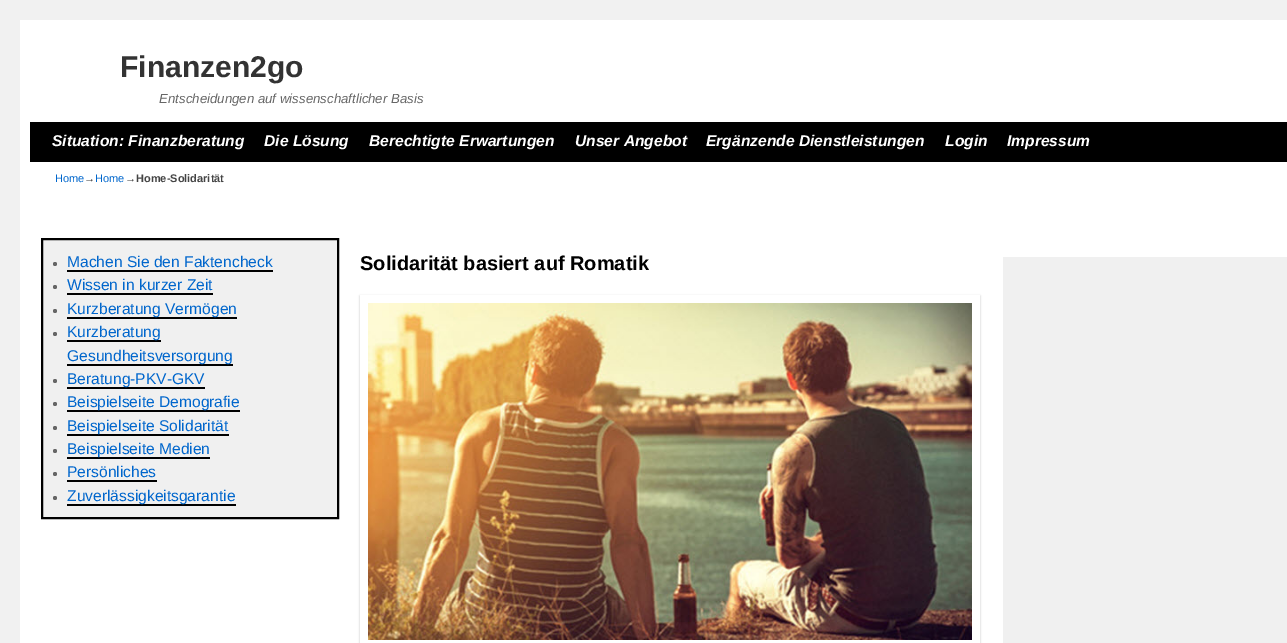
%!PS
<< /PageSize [1287 643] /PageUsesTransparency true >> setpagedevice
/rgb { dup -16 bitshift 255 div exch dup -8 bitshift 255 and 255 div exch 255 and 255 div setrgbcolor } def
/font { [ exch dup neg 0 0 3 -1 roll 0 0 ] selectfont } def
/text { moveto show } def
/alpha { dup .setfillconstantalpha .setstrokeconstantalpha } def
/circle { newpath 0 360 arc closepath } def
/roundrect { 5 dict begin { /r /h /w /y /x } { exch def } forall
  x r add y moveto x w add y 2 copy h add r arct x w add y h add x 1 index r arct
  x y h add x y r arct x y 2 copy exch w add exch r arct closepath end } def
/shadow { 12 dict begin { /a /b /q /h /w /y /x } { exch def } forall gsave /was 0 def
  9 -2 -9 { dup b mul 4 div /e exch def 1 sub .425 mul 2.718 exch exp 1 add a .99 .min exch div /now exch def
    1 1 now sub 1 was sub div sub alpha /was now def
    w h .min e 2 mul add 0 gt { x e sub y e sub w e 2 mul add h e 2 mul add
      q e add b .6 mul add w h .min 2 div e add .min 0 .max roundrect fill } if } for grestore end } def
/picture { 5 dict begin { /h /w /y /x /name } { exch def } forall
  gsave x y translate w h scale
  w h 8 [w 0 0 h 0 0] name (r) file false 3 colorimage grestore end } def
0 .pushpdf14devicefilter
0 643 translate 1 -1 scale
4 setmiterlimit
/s1 { /LiberationSans-Bold 30 font 16#333333 rgb } def
/s2 { /LiberationSans-Italic 13.25 font 16#666666 rgb } def
/s3 { /LiberationSans-BoldItalic 15.6 font 16#FFFFFF rgb } def
/s4 { /LiberationSans-Regular 11 font 16#0066CC rgb } def
/s5 { /LiberationSans-Regular 11 font 16#444444 rgb } def
/s6 { /LiberationSans-Bold 11 font 16#444444 rgb } def
/s7 { /LiberationSans-Regular 15.6 font 16#0066CC rgb } def
/s8 { /LiberationSans-Bold 20 font 16#000000 rgb } def
16#F1F1F1 rgb
0 0 1287 643 rectfill
16#FFFFFF rgb
20 20 1267 623 rectfill
s1
(Finanzen2go) 120 77 text
s2
(Entscheidungen auf wissenschaftlicher Basis) 159 103 text
16#000000 rgb
30 122 1257 40 rectfill
s3
(Situation: Finanzberatung) 52 146 text
(Die Lösung) 264 146 text
(Berechtigte Erwartungen) 369 146 text
(Unser Angebot) 575 146 text
(Ergänzende Dienstleistungen) 706 146 text
(Login) 945 146 text
(Impressum) 1007 146 text
s4
(Home) 55 182 text
s5
(→) 84 182 text
s4
(Home) 95 182 text
s5
(→) 125 182 text
s6
(Home-Solidarität) 136 182 text
16#F0F0F0 rgb
42 239 moveto 338 239 lineto 338 518 lineto 42 518 lineto closepath gsave fill grestore
16#000000 rgb
2 setlinewidth
stroke
16#666666 rgb
55 264 2 circle fill
s7
(Machen Sie den Faktencheck) 67 267 text
16#000000 rgb
67 270 206 2 rectfill
16#666666 rgb
55 287 2 circle fill
s7
(Wissen in kurzer Zeit) 67 290 text
16#000000 rgb
67 293 146 2 rectfill
16#666666 rgb
55 311 2 circle fill
16#000000 rgb
67 317 170 2 rectfill
s7
(Kurzberatung Vermögen) 67 314 text
16#666666 rgb
55 334 2 circle fill
16#000000 rgb
67 340 94 2 rectfill
s7
(Kurzberatung) 67 337 text
16#000000 rgb
67 364 166 2 rectfill
s7
(Gesundheitsversorgung) 67 361 text
16#666666 rgb
55 381 2 circle fill
16#000000 rgb
67 387 138 2 rectfill
s7
(Beratung-PKV-GKV) 67 384 text
16#666666 rgb
55 404 2 circle fill
16#000000 rgb
67 410 173 2 rectfill
s7
(Beispielseite Demografie) 67 407 text
16#666666 rgb
55 428 2 circle fill
16#000000 rgb
67 434 162 2 rectfill
s7
(Beispielseite Solidarität) 67 431 text
16#666666 rgb
55 451 2 circle fill
16#000000 rgb
67 457 143 2 rectfill
s7
(Beispielseite Medien) 67 454 text
16#666666 rgb
55 474 2 circle fill
s7
(Persönliches) 67 477 text
16#000000 rgb
67 480 90 2 rectfill
16#666666 rgb
55 498 2 circle fill
16#000000 rgb
67 504 169 2 rectfill
s7
(Zuverlässigkeitsgarantie) 67 501 text
s8
(Solidarität basiert auf Romatik) 360 270 text
gsave
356 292 moveto 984 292 lineto 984 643 lineto 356 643 lineto closepath 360 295 moveto 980 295 lineto 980 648 lineto 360 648 lineto closepath eoclip newpath
16#BBBBBB rgb
360 296 620 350 0 1 1 shadow
grestore
(pic1.raw) 368 303 604 337 picture
16#F0F0F0 rgb
1003 257 284 386 rectfill
.poppdf14devicefilter showpage
